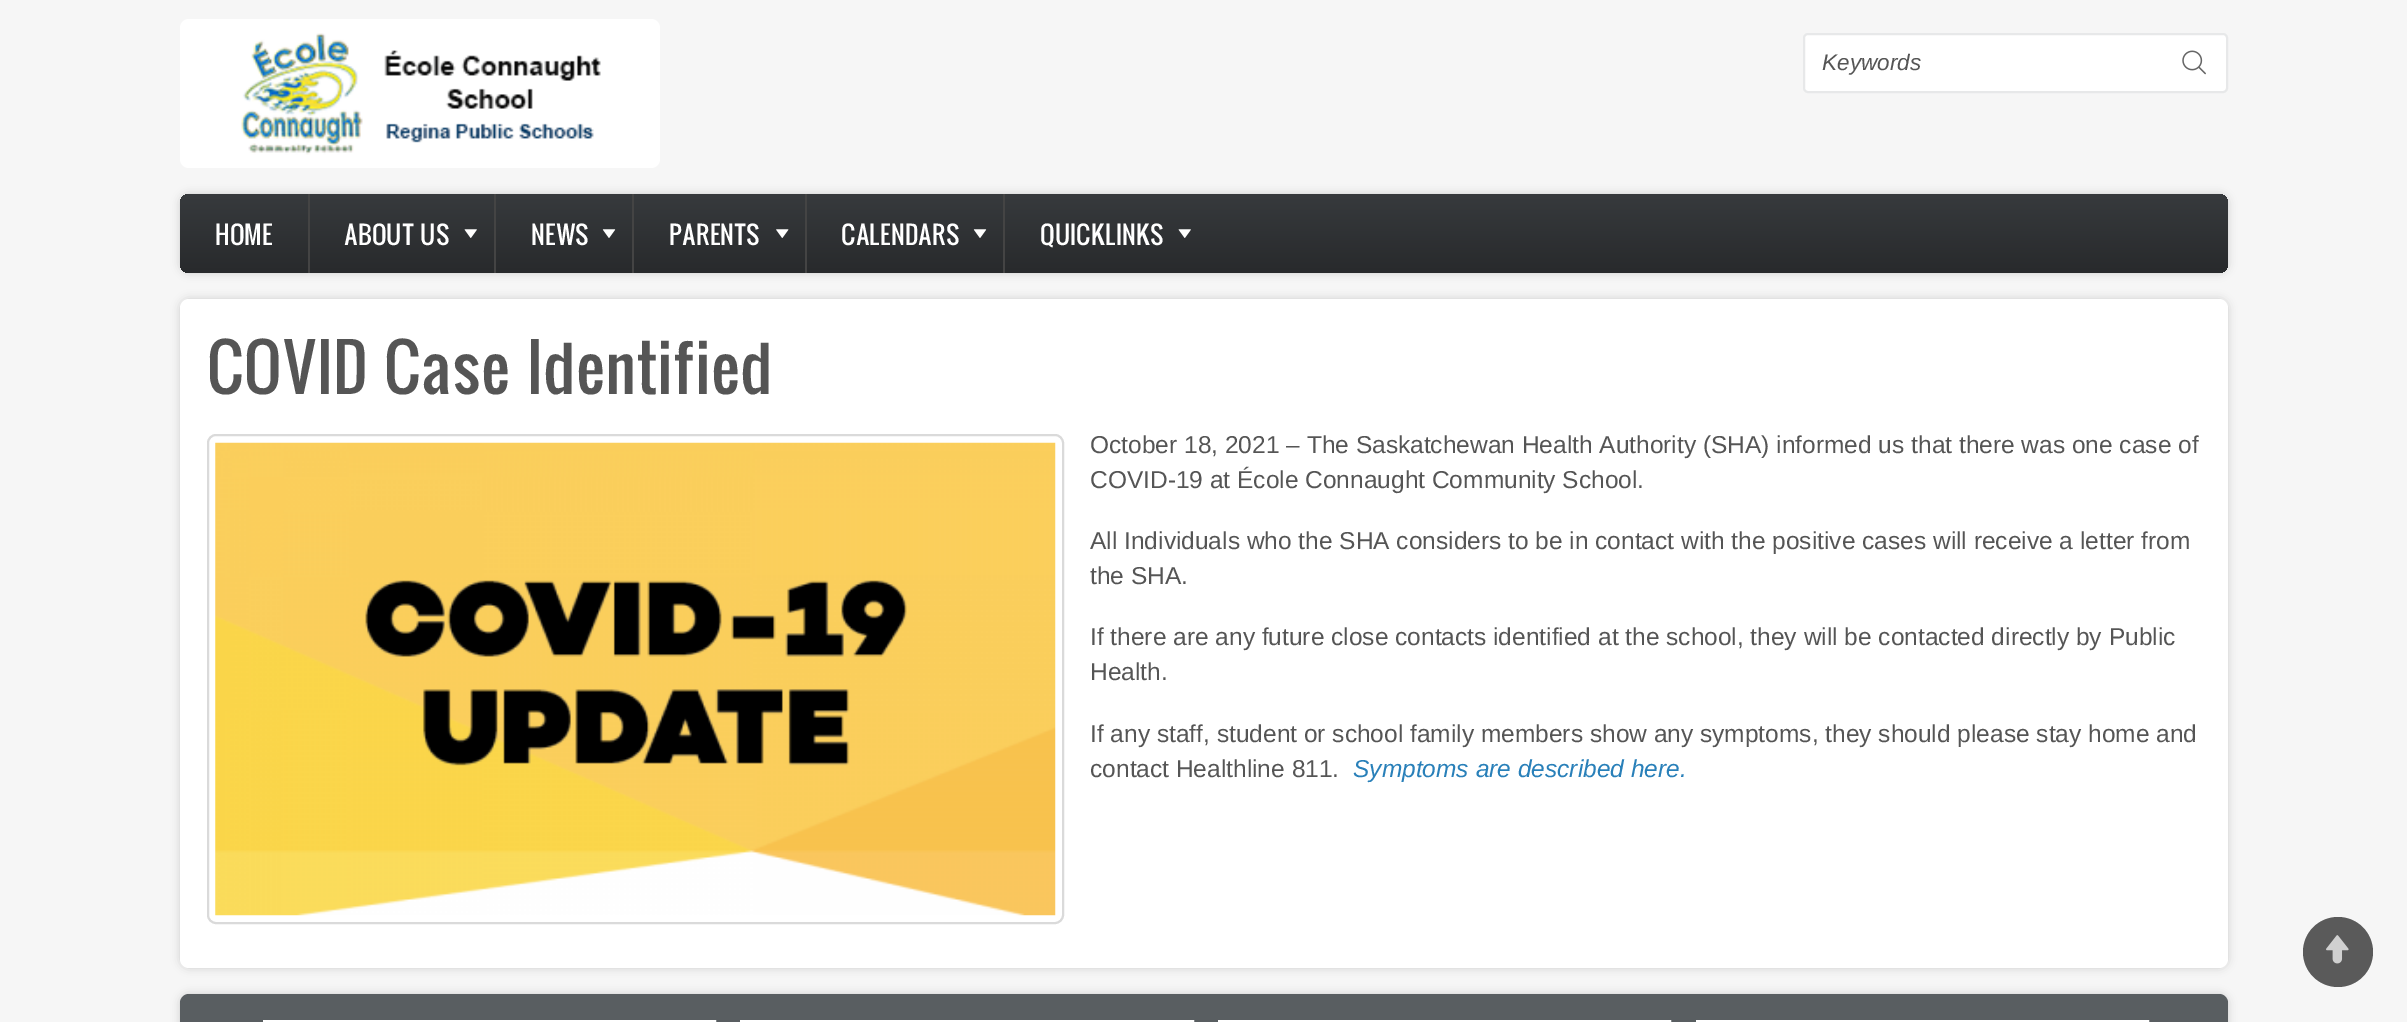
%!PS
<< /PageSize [2407 1022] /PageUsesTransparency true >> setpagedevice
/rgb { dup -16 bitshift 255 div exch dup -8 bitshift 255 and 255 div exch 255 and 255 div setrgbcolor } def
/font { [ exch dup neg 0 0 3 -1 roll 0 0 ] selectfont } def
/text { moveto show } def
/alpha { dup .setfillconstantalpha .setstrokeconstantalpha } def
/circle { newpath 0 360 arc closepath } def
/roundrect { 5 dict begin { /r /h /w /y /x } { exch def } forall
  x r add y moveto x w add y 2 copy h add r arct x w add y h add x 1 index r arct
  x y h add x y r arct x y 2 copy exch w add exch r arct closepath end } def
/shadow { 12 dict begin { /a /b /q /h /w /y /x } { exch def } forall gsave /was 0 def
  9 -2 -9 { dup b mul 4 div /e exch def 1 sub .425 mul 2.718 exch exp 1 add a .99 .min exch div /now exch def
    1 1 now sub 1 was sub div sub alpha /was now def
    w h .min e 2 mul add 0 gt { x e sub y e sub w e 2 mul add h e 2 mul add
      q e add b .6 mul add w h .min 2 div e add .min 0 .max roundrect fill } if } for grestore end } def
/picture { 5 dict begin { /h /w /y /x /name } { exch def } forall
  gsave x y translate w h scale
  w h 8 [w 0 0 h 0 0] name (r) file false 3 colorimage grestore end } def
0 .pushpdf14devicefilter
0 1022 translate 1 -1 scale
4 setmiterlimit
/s1 { /LiberationSans-Italic 22.5 font 16#555555 rgb } def
/s2 { /Oswald-Regular 24.5 font 16#FFFFFF rgb } def
/s3 { /Oswald-Regular 63 font 16#555555 rgb } def
/s4 { /LiberationSans-Regular 24.5 font 16#555555 rgb } def
/s5 { /LiberationSans-Italic 24.5 font 16#2980B9 rgb } def
16#F6F6F6 rgb
0 0 2407 1022 rectfill
16#FFFFFF rgb
180 19 480 149 9 roundrect fill
(pic1.raw) 241 33 360 122 picture
1804 34 423 58 4 roundrect gsave fill grestore
16#E7E8E9 rgb
2 setlinewidth
stroke
s1
(Keywords) 1822 70 text
(pic2.raw) 2182 50 24 25 picture
16#CCCCCC rgb
180 194 2048 79 9 4.5 1 shadow
gsave 180 194 2048 79 9 roundrect clip newpath
<< /ShadingType 2 /ColorSpace /DeviceRGB /Coords [1204 194 1204 273] /Extend [true true] /Function << /FunctionType 2 /Domain [0 1] /C0 [0.216 0.227 0.239] /C1 [0.157 0.165 0.173] /N 1 >> >> shfill grestore
s2
(HOME) 215 245 text
16#444444 rgb
308 194 2 79 rectfill
s2
(ABOUT US) 344 245 text
(pic3.raw) 464 229 13 9 picture
16#444444 rgb
494 194 2 79 rectfill
s2
(NEWS) 531 245 text
(pic4.raw) 602 229 14 9 picture
16#444444 rgb
632 194 2 79 rectfill
s2
(PARENTS) 669 245 text
(pic5.raw) 776 229 13 9 picture
16#444444 rgb
805 194 2 79 rectfill
s2
(CALENDARS) 841 245 text
(pic4.raw) 973 229 14 9 picture
16#444444 rgb
1003 194 2 79 rectfill
s2
(QUICKLINKS) 1040 245 text
(pic3.raw) 1178 229 13 9 picture
16#CCCCCC rgb
180 299 2048 669 9 4.5 1 shadow
16#FFFFFF rgb
180 299 2048 669 9 roundrect fill
s3
(COVID Case Identified) 207 394 text
16#DADADA rgb
208 435 855 488 8 roundrect stroke
(pic6.raw) 215 442 841 474 picture
s4
(October 18, 2021 – The Saskatchewan Health Authority \(SHA\) informed us that there was one case of) 1090 453 text
(COVID-19 at École Connaught Community School.) 1090 488 text
(All Individuals who the SHA considers to be in contact with the positive cases will receive a letter from) 1090 549 text
(the SHA.) 1090 584 text
(If there are any future close contacts identified at the school, they will be contacted directly by Public) 1090 645 text
(Health.) 1090 680 text
(If any staff, student or school family members show any symptoms, they should please stay home and) 1090 742 text
(contact Healthline 811.) 1090 777 text
s5
(Symptoms are described here.) 1353 777 text
16#5A5A5A rgb
2338 952 35 circle fill
(pic7.raw) 2326 935 23 29 picture
16#CCCCCC rgb
180 994 2048 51 9 4.5 1 shadow
16#595E61 rgb
180 994 2048 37 9 roundrect fill
16#FFFFFF rgb
4 setlinewidth
265 1022 449 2 rectstroke
742 1022 450 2 rectstroke
1220 1022 449 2 rectstroke
1698 1022 449 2 rectstroke
.poppdf14devicefilter showpage
